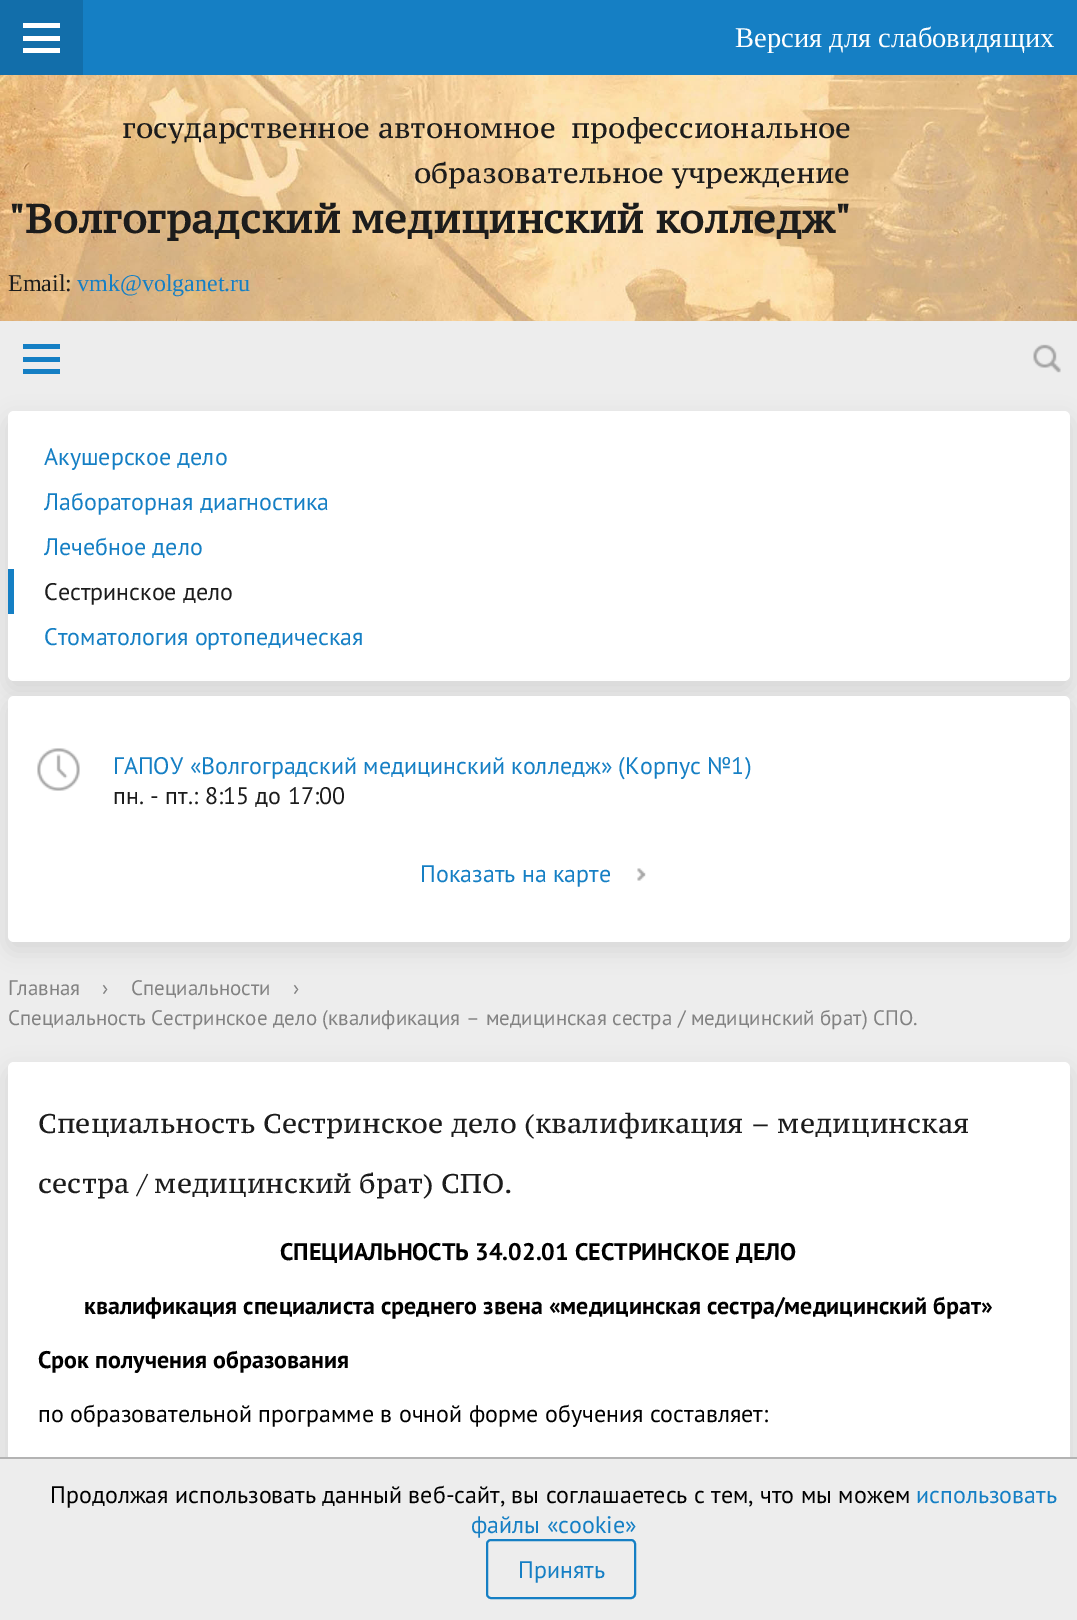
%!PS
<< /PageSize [1077 1620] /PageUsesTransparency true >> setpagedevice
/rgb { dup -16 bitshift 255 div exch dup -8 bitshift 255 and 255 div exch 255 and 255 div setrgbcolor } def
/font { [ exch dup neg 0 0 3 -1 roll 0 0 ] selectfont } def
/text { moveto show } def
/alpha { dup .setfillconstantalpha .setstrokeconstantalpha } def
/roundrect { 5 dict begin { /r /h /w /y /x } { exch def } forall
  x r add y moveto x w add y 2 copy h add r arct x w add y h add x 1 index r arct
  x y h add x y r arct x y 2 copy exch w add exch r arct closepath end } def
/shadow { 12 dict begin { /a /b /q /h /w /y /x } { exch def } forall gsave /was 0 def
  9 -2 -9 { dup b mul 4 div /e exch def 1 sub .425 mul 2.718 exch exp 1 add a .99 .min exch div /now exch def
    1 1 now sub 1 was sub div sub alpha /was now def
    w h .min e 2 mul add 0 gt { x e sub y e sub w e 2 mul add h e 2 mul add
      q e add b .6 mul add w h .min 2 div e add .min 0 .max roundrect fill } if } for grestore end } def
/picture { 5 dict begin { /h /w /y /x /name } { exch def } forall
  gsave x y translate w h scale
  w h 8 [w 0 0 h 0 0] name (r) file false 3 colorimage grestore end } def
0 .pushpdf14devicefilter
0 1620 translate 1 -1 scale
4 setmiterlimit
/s1 { /LiberationSerif-Regular 28.5 font 16#FFFFFF rgb } def
/s2 { /PTSerifCaption-Regular 28 font 16#1C1C1C rgb } def
/s3 { /PTSerifCaption-Bold 40 font 16#1C1C1C rgb } def
/s4 { /LiberationSerif-Regular 24 font 16#1C1C1C rgb } def
/s5 { /LiberationSerif-Regular 24 font 16#157FC4 rgb } def
/s6 { /PTSans-Regular 24 font 16#157FC4 rgb } def
/s7 { /PTSans-Regular 24 font 16#1C1C1C rgb } def
/s8 { /PTSans-Regular 21 font 16#828282 rgb } def
/s9 { /PTSerifCaption-Regular 27 font 16#1C1C1C rgb } def
/s10 { /PTSans-Bold 24 font 16#000000 rgb } def
/s11 { /PTSans-Regular 24 font 16#000000 rgb } def
16#EDEDED rgb
0 0 1077 1620 rectfill
(pic1.raw) 0 75 1077 246 picture
16#157FC4 rgb
83 0 994 75 rectfill
16#126EAA rgb
0 0 83 75 rectfill
16#FFFFFF rgb
23 23 37 5 rectfill
23 36 37 5 rectfill
23 48 37 5 rectfill
s1
(Версия для слабовидящих) 735 47 text
s2
(государственное автономное  профессиональное) 122 138 text
(образовательное учреждение) 414 183 text
s3
("Волгоградский медицинский колледж") 8 233 text
s4
(Еmail:) 8 291 text
s5
(vmk@volganet.ru) 77 291 text
23 344 37 5 rectfill
23 357 37 5 rectfill
23 369 37 5 rectfill
(pic2.raw) 1033 344 28 29 picture
16#000000 rgb
8 419 1062 270 6 11 0.1 shadow
16#FFFFFF rgb
8 411 1062 270 6 roundrect fill
s6
(Акушерское дело) 44 465 text
(Лабораторная диагностика) 44 510 text
(Лечебное дело) 44 555 text
8 569 6 45 rectfill
s7
(Сестринское дело) 44 600 text
s6
(Стоматология ортопедическая) 44 645 text
16#000000 rgb
8 704 1062 246 6 11 0.1 shadow
16#FFFFFF rgb
8 696 1062 246 6 roundrect fill
(pic3.raw) 37 748 43 43 picture
s6
(ГАПОУ «Волгоградский медицинский колледж» \(Корпус №1\)) 113 774 text
s7
(пн. - пт.: 8:15 до 17:00) 113 804 text
s6
(Показать на карте) 420 882 text
(pic4.raw) 637 868 9 13 picture
s8
(Главная) 8 995 text
(›) 102 995 text
(Специальности) 131 995 text
(›) 293 995 text
(Специальность Сестринское дело \(квалификация – медицинская сестра / медицинский брат\) СПО.) 8 1025 text
16#000000 rgb
8 1070 1062 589 6 11 0.1 shadow
16#FFFFFF rgb
8 1062 1062 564 6 roundrect fill
s9
(Специальность Сестринское дело \(квалификация – медицинская) 38 1133 text
(сестра / медицинский брат\) СПО.) 38 1193 text
s10
(СПЕЦИАЛЬНОСТЬ 34.02.01 СЕСТРИНСКОЕ ДЕЛО) 280 1260 text
(квалификация специалиста среднего звена «медицинская сестра/медицинский брат») 84 1314 text
(Срок получения образования) 38 1368 text
s11
(по образовательной программе в очной форме обучения составляет:) 38 1422 text
16#EDEDED rgb
0 1459 1077 161 rectfill
16#B3B3B3 rgb
0 1457 1077 2 rectfill
s11
(Продолжая использовать данный веб-сайт, вы соглашаетесь с тем, что мы можем) 50 1503 text
s6
(использовать) 916 1503 text
(файлы «cookie») 471 1533 text
2 setlinewidth
487 1540 148 58 4 roundrect stroke
(Принять) 518 1578 text
.poppdf14devicefilter showpage
